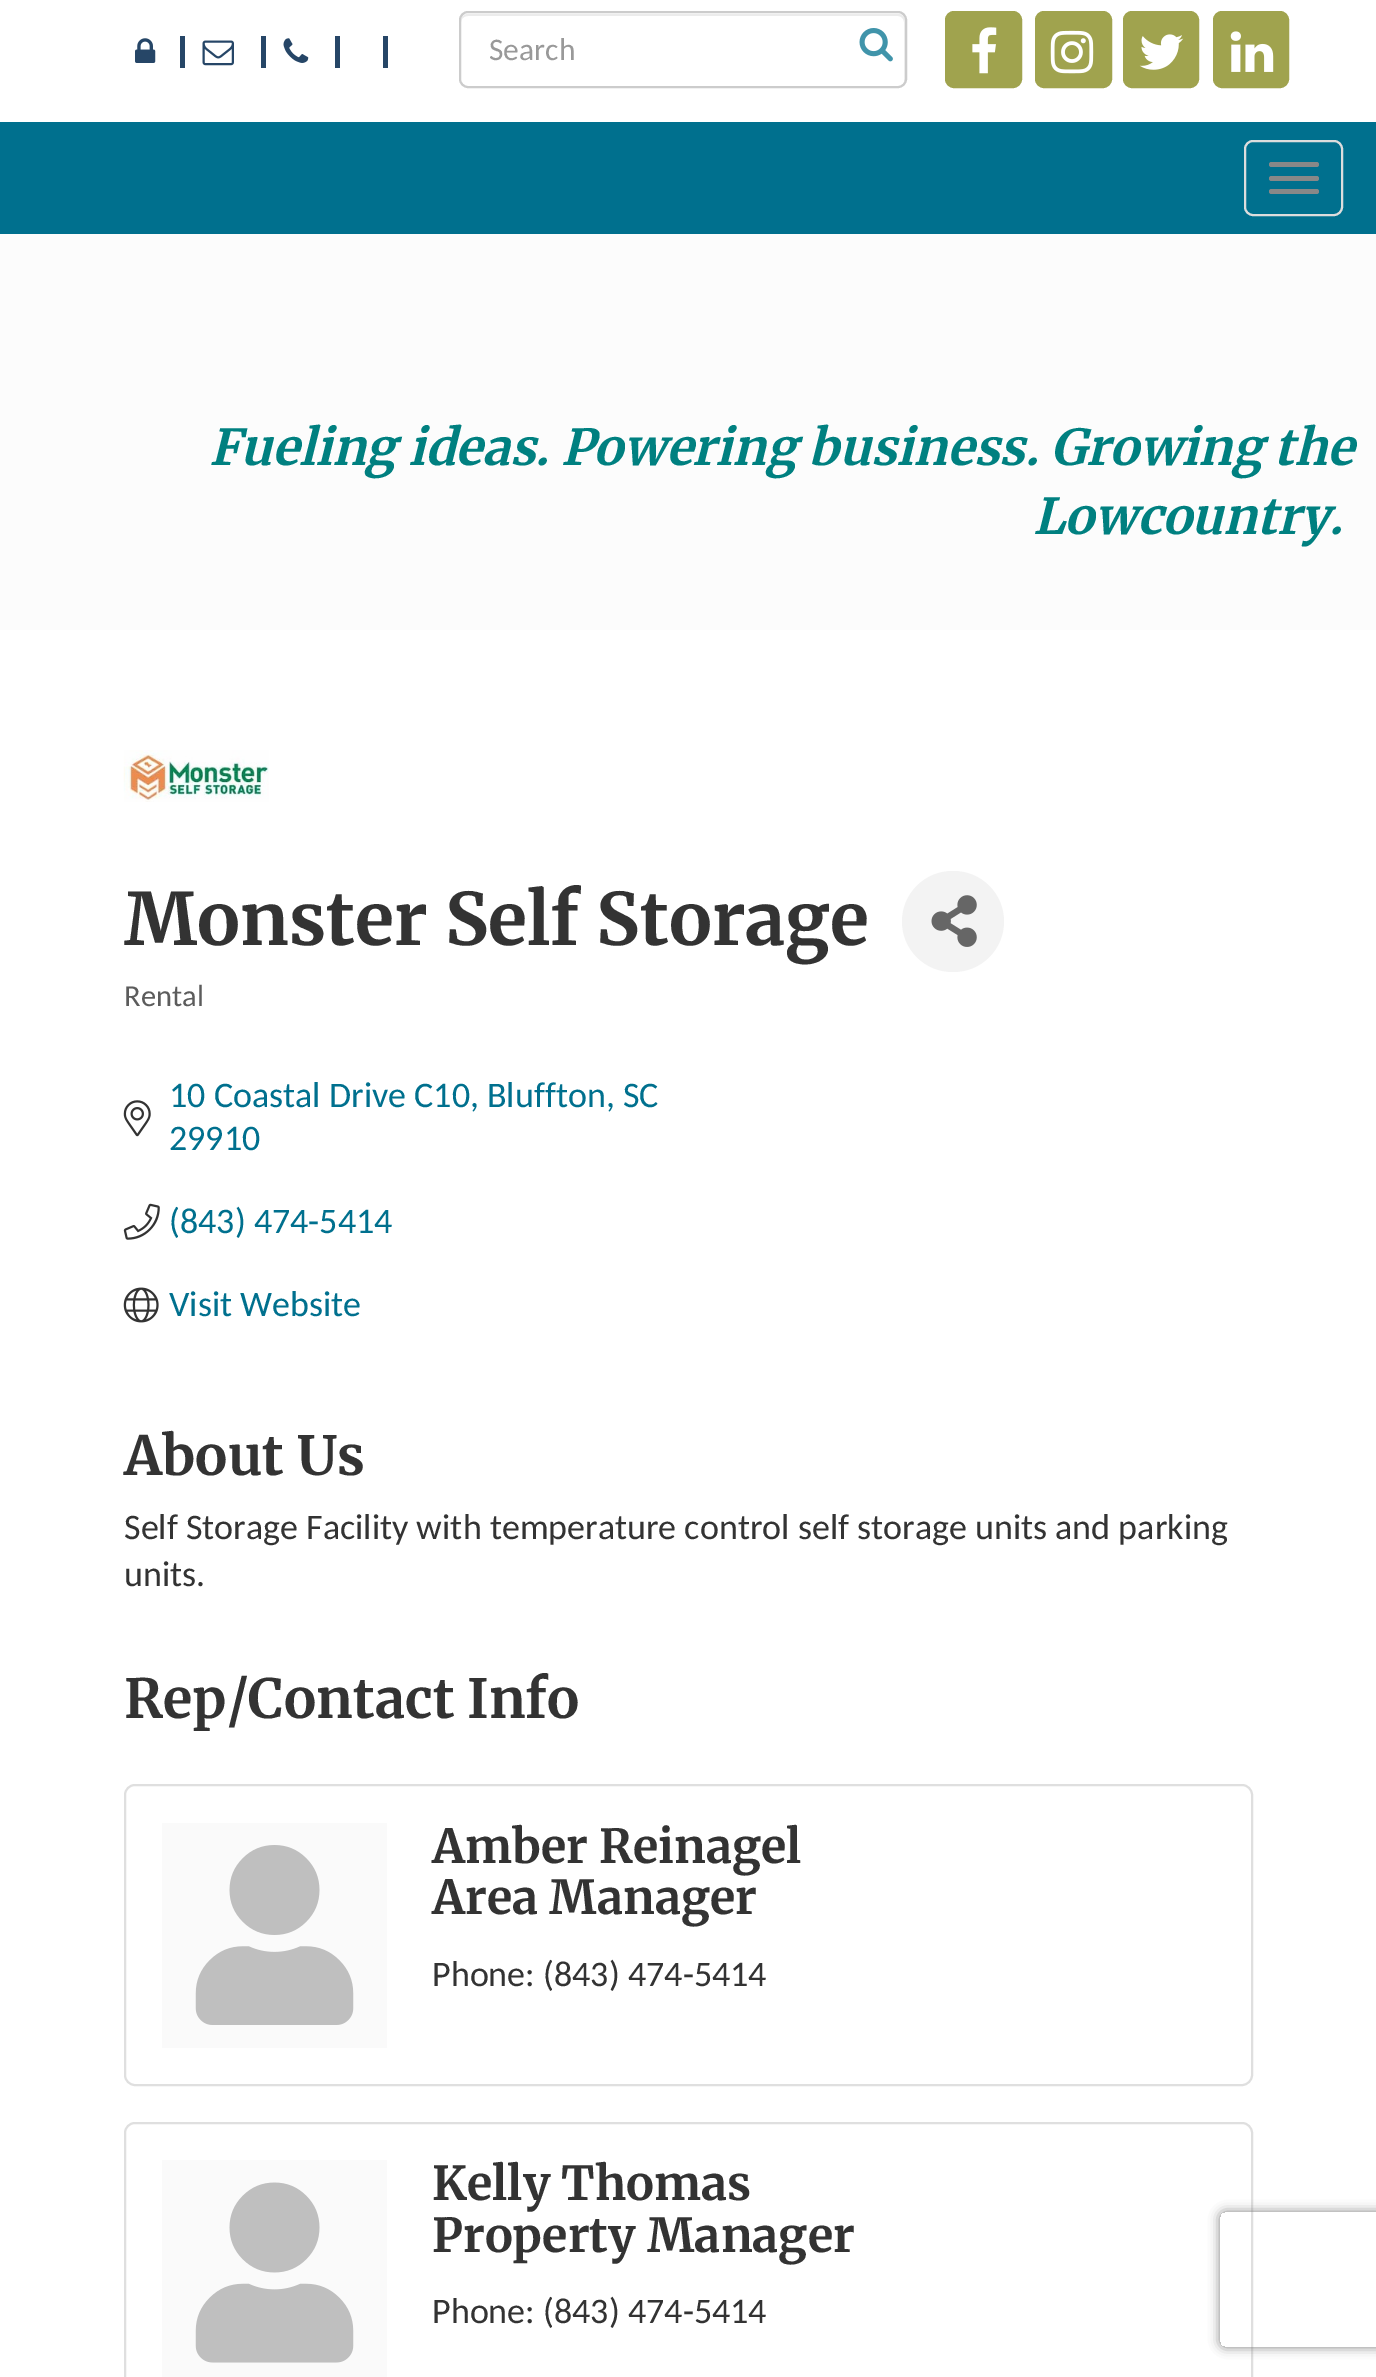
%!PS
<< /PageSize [1376 2377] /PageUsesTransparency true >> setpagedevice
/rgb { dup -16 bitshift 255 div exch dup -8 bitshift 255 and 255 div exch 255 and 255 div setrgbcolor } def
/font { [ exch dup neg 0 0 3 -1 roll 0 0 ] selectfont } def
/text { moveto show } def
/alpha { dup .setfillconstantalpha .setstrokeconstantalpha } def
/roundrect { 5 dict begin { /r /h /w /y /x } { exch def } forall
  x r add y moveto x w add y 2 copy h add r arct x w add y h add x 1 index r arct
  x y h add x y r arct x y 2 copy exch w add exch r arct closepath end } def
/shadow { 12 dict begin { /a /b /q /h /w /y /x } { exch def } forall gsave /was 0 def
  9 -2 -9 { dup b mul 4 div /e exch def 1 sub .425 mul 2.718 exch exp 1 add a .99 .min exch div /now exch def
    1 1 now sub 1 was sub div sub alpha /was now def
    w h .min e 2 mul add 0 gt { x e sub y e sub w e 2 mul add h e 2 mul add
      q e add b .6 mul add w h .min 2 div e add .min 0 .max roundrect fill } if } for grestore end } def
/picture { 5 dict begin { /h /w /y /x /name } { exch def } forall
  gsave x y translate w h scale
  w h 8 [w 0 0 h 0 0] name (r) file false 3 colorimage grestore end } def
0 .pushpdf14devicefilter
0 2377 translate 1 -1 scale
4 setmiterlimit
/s1 { /Carlito-Regular 31.5 font 16#999999 rgb } def
/s2 { /Merriweather-BoldItalic 49.5 font 16#008080 rgb } def
/s3 { /Merriweather-Bold 72 font 16#333333 rgb } def
/s4 { /Carlito-Regular 30.5 font 16#5C5C5C rgb } def
/s5 { /Carlito-Regular 36 font 16#00708E rgb } def
/s6 { /Merriweather-Bold 54 font 16#333333 rgb } def
/s7 { /Carlito-Regular 36 font 16#333333 rgb } def
/s8 { /Merriweather-Bold 46.75 font 16#333333 rgb } def
16#FFFFFF rgb
0 0 1376 2377 rectfill
(pic1.raw) 135 38 21 25 picture
16#264667 rgb
180 36 5 32 rectfill
(pic2.raw) 202 40 32 26 picture
261 36 5 32 rectfill
(pic3.raw) 283 38 26 25 picture
335 36 5 32 rectfill
383 36 5 32 rectfill
16#ECECEC rgb
468 16 moveto 898 16 lineto 901 16 904 19 904 22 curveto 904 83 lineto 905 82 905 80 905 79 curveto 905 21 lineto 905 17 902 14 898 14 curveto 468 14 lineto 464 14 461 17 461 21 curveto 461 22 lineto 461 19 464 16 468 16 curveto closepath fill
16#CCCCCC rgb
2 setlinewidth
460 12 446 75 8 roundrect stroke
s1
(Search) 489 60 text
(pic4.raw) 859 28 34 34 picture
16#A0A34E rgb
946 12 75 75 8 roundrect gsave fill grestore
stroke
(pic5.raw) 972 27 25 47 picture
1036 12 75 75 8 roundrect gsave fill grestore
stroke
(pic6.raw) 1050 30 44 44 picture
1124 12 74 75 8 roundrect gsave fill grestore
stroke
(pic7.raw) 1139 34 45 36 picture
1214 12 74 75 8 roundrect gsave fill grestore
stroke
(pic8.raw) 1230 31 44 41 picture
16#00708E rgb
0 122 1376 112 rectfill
16#DDDDDD rgb
1245 141 97 74 8 roundrect stroke
16#888888 rgb
1269 162 50 5 2.5 roundrect fill
1269 176 50 5 2.5 roundrect fill
1269 189 50 5 2.5 roundrect fill
16#FCFCFC rgb
0 234 1376 396 rectfill
s2
(Fueling ideas. Powering business. Growing the) 209 465 text
(Lowcountry.) 1033 534 text
(pic9.raw) 123 750 146 52 picture
s3
(Monster Self Storage) 124 945 text
16#F3F3F3 rgb
902 871 102 101 50.5 roundrect fill
(pic10.raw) 931 895 46 52 picture
s4
(Rental) 124 1006 text
s5
(10 Coastal Drive C10, Bluffton, SC) 169 1107 text
(pic11.raw) 123 1100 28 37 picture
(29910) 169 1150 text
(pic12.raw) 123 1203 37 37 picture
(\(843\) 474-5414) 169 1233 text
(pic13.raw) 123 1287 36 36 picture
(Visit Website) 169 1316 text
s6
(About Us) 124 1475 text
s7
(Self Storage Facility with temperature control self storage units and parking) 124 1539 text
(units.) 124 1586 text
s6
(Rep/Contact Info) 124 1718 text
16#DFDFDF rgb
125 1785 1127 300 10 roundrect stroke
16#FAFAFA rgb
162 1823 225 225 rectfill
(pic14.raw) 195 1845 159 180 picture
s8
(Amber Reinagel) 432 1863 text
(Area Manager) 432 1914 text
s7
(Phone: \(843\) 474-5414) 432 1986 text
16#DFDFDF rgb
125 2123 1127 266 10 roundrect stroke
16#FAFAFA rgb
162 2160 225 217 rectfill
(pic15.raw) 195 2182 159 181 picture
s8
(Kelly Thomas) 432 2200 text
(Property Manager) 432 2252 text
s7
(Phone: \(843\) 474-5414) 432 2323 text
gsave
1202 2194 moveto 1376 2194 lineto 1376 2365 lineto 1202 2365 lineto closepath 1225 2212 moveto 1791 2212 lineto 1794 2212 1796 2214 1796 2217 curveto 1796 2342 lineto 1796 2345 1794 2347 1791 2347 curveto 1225 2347 lineto 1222 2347 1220 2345 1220 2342 curveto 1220 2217 lineto 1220 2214 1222 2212 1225 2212 curveto closepath eoclip newpath
16#808080 rgb
1220 2212 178 135 5 5.5 1 shadow
grestore
.poppdf14devicefilter showpage
